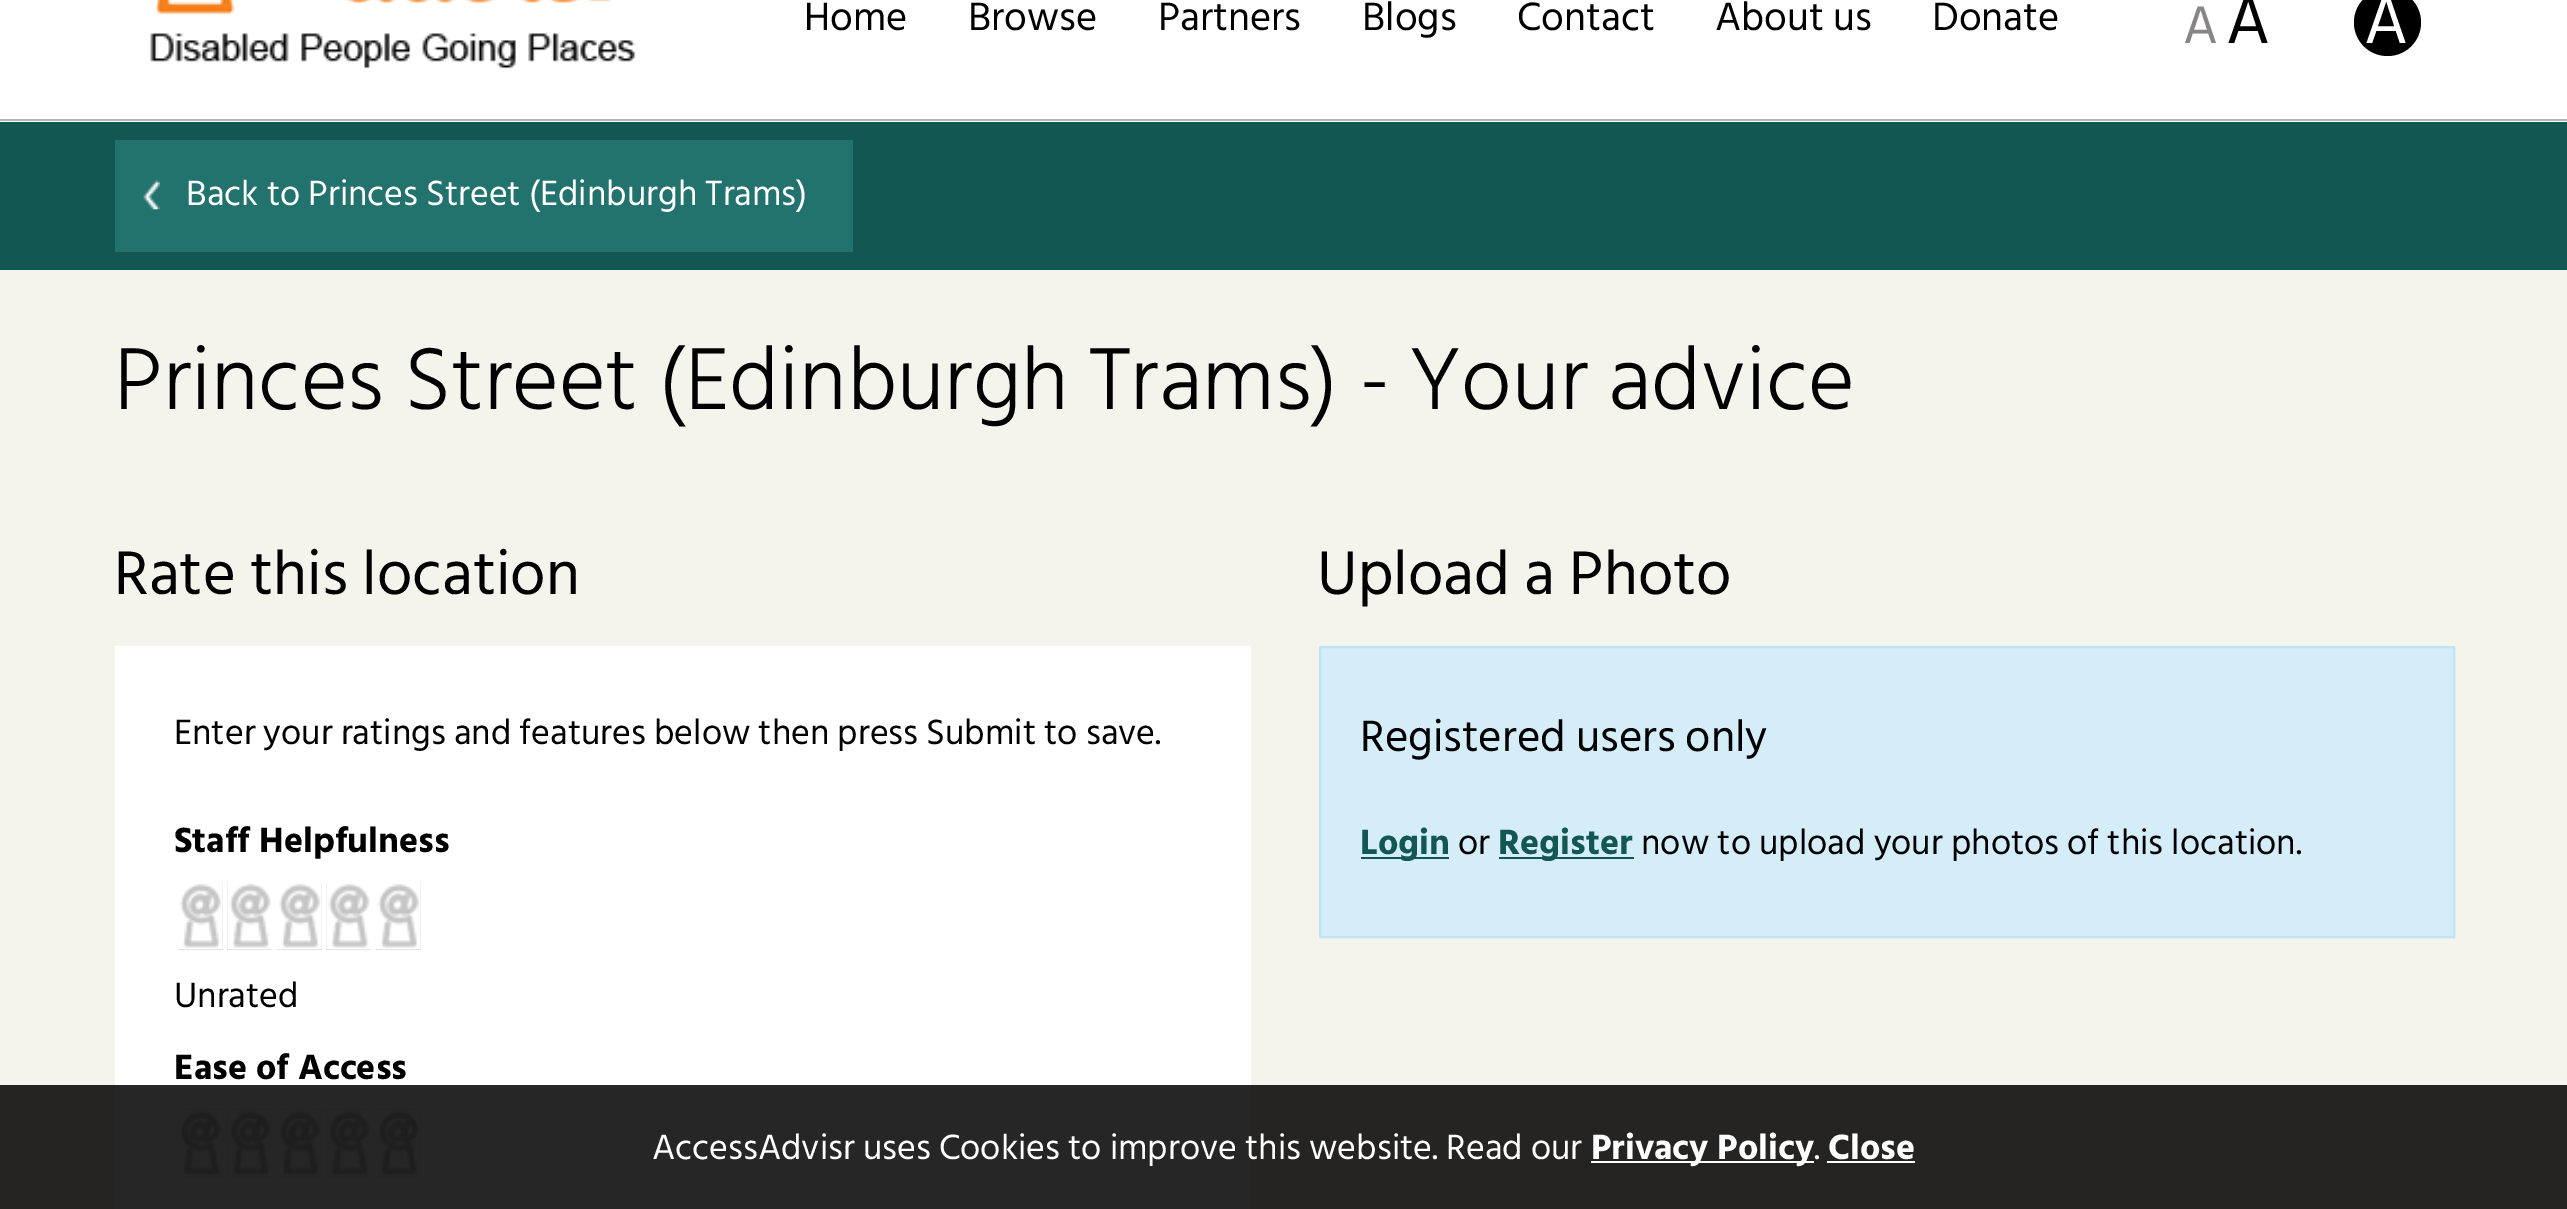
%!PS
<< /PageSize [2567 1209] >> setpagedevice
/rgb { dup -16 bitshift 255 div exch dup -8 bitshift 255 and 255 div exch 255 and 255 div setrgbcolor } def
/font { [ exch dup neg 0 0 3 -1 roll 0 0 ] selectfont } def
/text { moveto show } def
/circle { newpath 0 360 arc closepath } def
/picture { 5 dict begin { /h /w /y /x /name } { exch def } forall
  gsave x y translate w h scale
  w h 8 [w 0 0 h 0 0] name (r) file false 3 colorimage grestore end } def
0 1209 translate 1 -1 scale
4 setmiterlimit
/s1 { /HindSiliguri-Regular 40.5 font 16#000000 rgb } def
/s2 { /HindSiliguri-Regular 54 font 16#878585 rgb } def
/s3 { /HindSiliguri-Regular 68 font 16#000000 rgb } def
/s4 { /HindSiliguri-Regular 68 font 16#FFFFFF rgb } def
/s5 { /HindSiliguri-Regular 36 font 16#FFFFFF rgb } def
/s6 { /HindSiliguri-Light 90 font 16#000000 rgb } def
/s7 { /HindSiliguri-Regular 63 font 16#000000 rgb } def
/s8 { /HindSiliguri-Regular 36 font 16#000000 rgb } def
/s9 { /HindSiliguri-Bold 36 font 16#000000 rgb } def
/s10 { /HindSiliguri-Regular 45 font 16#000000 rgb } def
/s11 { /HindSiliguri-Bold 36 font 16#135753 rgb } def
/s12 { /HindSiliguri-Bold 36 font 16#FFFFFF rgb } def
16#F4F3EC rgb
0 0 2567 1209 rectfill
16#252423 rgb
0 1085 2567 124 rectfill
16#FFFFFF rgb
0 0 2567 122 rectfill
16#B6B4B4 rgb
0 119 2567 2 rectfill
(pic1.raw) 150 0 486 69 picture
s1
(Home) 804 30 text
(Browse) 968 30 text
(Partners) 1158 30 text
(Blogs) 1362 30 text
(Contact) 1517 30 text
(About us) 1715 30 text
(Donate) 1932 30 text
s2
(A) 2183 43 text
s3
(A) 2226 43 text
2387.5 22.5 33.5 circle fill
s4
(A) 2364 43 text
16#135753 rgb
0 122 2567 148 rectfill
16#22726D rgb
115 140 738 112 rectfill
(pic2.raw) 143 180 17 30 picture
s5
(Back to Princes Street \(Edinburgh Trams\)) 186 205 text
s6
(Princes Street \(Edinburgh Trams\) - Your advice) 114 409 text
s7
(Rate this location) 114 594 text
16#FFFFFF rgb
115 646 1136 439 rectfill
16#262626 rgb
115 1085 1136 124 rectfill
s8
(Enter your ratings and features below then press Submit to save.) 174 744 text
s9
(Staff Helpfulness) 174 852 text
16#C5C5C5 rgb
178 882 45 68 rectfill
(pic3.raw) 178 882 45 68 picture
227 882 45 68 rectfill
(pic4.raw) 227 882 45 68 picture
277 882 45 68 rectfill
(pic5.raw) 277 882 45 68 picture
326 882 45 68 rectfill
(pic4.raw) 326 882 45 68 picture
376 882 45 68 rectfill
(pic3.raw) 376 882 45 68 picture
s8
(Unrated) 174 1007 text
s9
(Ease of Access) 174 1079 text
16#1E1E1E rgb
178 1109 45 68 rectfill
(pic6.raw) 178 1109 45 68 picture
227 1109 45 68 rectfill
(pic7.raw) 227 1109 45 68 picture
277 1109 45 68 rectfill
(pic8.raw) 277 1109 45 68 picture
326 1109 45 68 rectfill
(pic7.raw) 326 1109 45 68 picture
376 1109 45 68 rectfill
(pic6.raw) 376 1109 45 68 picture
s7
(Upload a Photo) 1317 594 text
16#D5EDF8 rgb
1320 647 moveto 2454 647 lineto 2454 937 lineto 1320 937 lineto closepath gsave fill grestore
16#BFE4F4 rgb
2 setlinewidth
stroke
s10
(Registered users only) 1360 751 text
16#135753 rgb
1361 857 88 2 rectfill
s11
(Login) 1360 854 text
s8
(or) 1458 854 text
16#135753 rgb
1499 857 135 2 rectfill
s11
(Register) 1498 854 text
s8
(now to upload your photos of this location.) 1641 854 text
s5
(AccessAdvisr uses Cookies to improve this website. Read our) 652 1159 text
1591 1161 223 2 rectfill
s12
(Privacy Policy) 1591 1159 text
s5
(.) 1814 1159 text
s12
(Close) 1828 1159 text
1827 1161 88 2 rectfill
showpage
